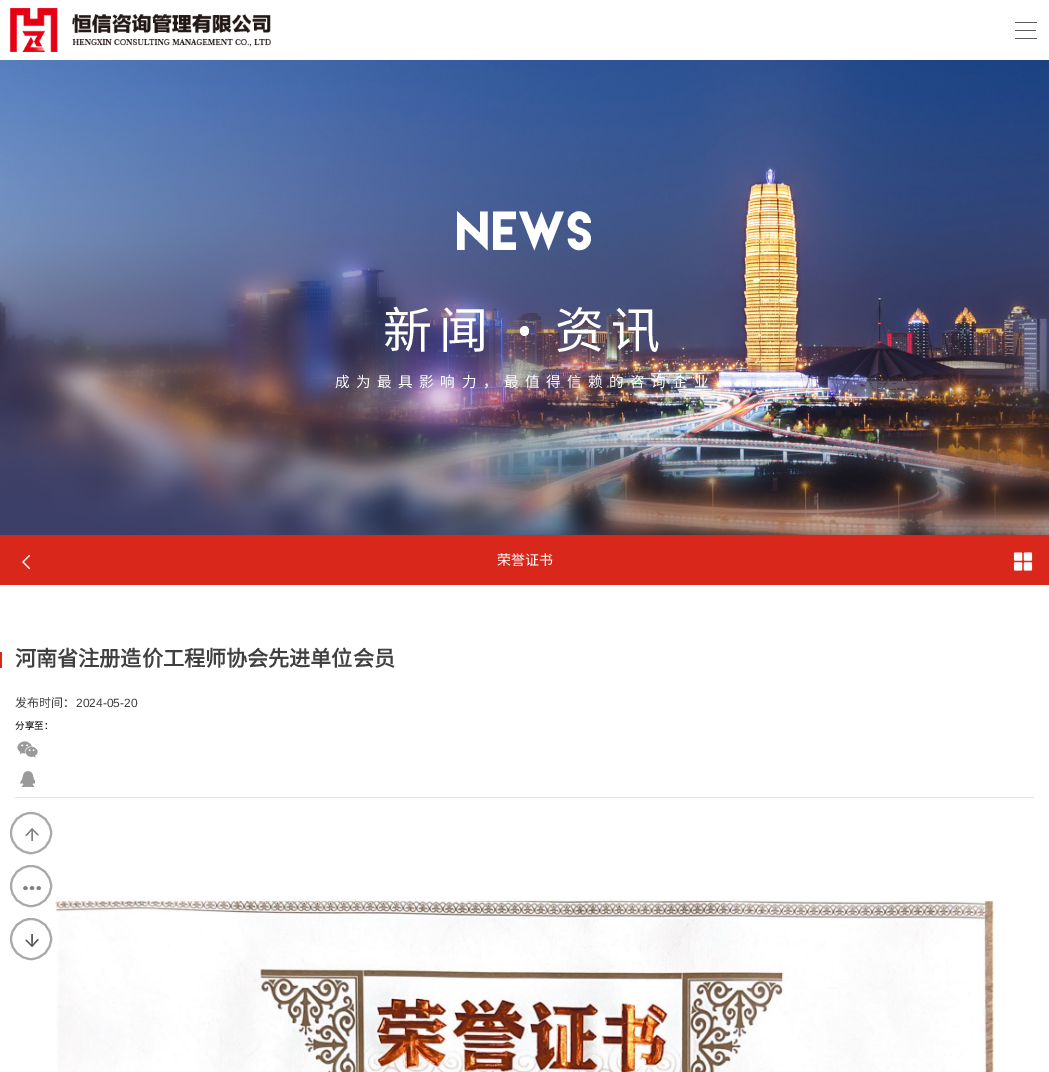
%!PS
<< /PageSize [1049 1072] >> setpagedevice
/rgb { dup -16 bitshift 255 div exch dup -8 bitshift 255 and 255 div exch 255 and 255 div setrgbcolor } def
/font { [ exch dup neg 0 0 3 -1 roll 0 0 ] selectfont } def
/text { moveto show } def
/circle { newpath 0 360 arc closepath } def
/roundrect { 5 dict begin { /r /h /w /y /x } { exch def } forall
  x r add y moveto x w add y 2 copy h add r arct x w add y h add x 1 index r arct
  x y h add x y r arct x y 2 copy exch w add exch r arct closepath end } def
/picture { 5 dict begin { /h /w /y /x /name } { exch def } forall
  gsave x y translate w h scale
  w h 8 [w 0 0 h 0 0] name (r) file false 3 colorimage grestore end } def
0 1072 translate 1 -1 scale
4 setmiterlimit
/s1 { /NotoSansCJKSC-Regular 14 font 16#FFFFFF rgb } def
/s2 { /NotoSansCJKSC-Bold 21.1 font 16#404040 rgb } def
/s3 { /NotoSansCJKSC-Regular 12 font 16#404040 rgb } def
/s4 { /LiberationSans-Regular 12 font 16#404040 rgb } def
/s5 { /NotoSansCJKSC-Regular 9.5 font 16#000000 rgb } def
16#FFFFFF rgb
0 0 1049 1072 rectfill
(pic1.raw) 10 8 261 44 picture
16#5B5B5B rgb
1015 30 21 1 rectfill
1015 22 22 1 rectfill
1015 38 22 1 rectfill
(pic2.raw) 0 60 1049 475 picture
/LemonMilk-Regular 49 font
16#FFFFFF rgb
455 250 moveto 1 0 (news) ashow
/NotoSansCJKSC-Regular 49 font
383 348 moveto 6.5 0 (新闻) ashow
520 326 9 10 4.5 roundrect fill
555 348 moveto 6.5 0 (资讯) ashow
/NotoSansCJKSC-Regular 14.6 font
335 387 moveto 6.5 0 (成为最具影响力，最值得信赖的咨询企业) ashow
16#D9271B rgb
0 535 1049 50 rectfill
(pic3.raw) 22 554 8 15 picture
s1
(荣誉证书) 497 565 text
(pic4.raw) 1013 552 20 19 picture
16#E5E5E5 rgb
15 797 1019 1 rectfill
16#D9271B rgb
0 652 2 16 rectfill
s2
(河南省注册造价工程师协会先进单位会员) 15 666 text
s3
(发布时间：) 15 707 text
s4
(2024-05-20) 76 707 text
s5
(分享至：) 15 729 text
(pic5.raw) 17 741 21 17 picture
(pic6.raw) 20 771 15 16 picture
(pic7.raw) 55 898 939 174 picture
16#A9A9A9 rgb
2 setlinewidth
31 833 20 circle stroke
(pic8.raw) 25 828 14 13 picture
31 886 20 circle stroke
(pic9.raw) 23 886 18 4 picture
31 939 20 circle stroke
(pic10.raw) 25 934 14 13 picture
showpage
